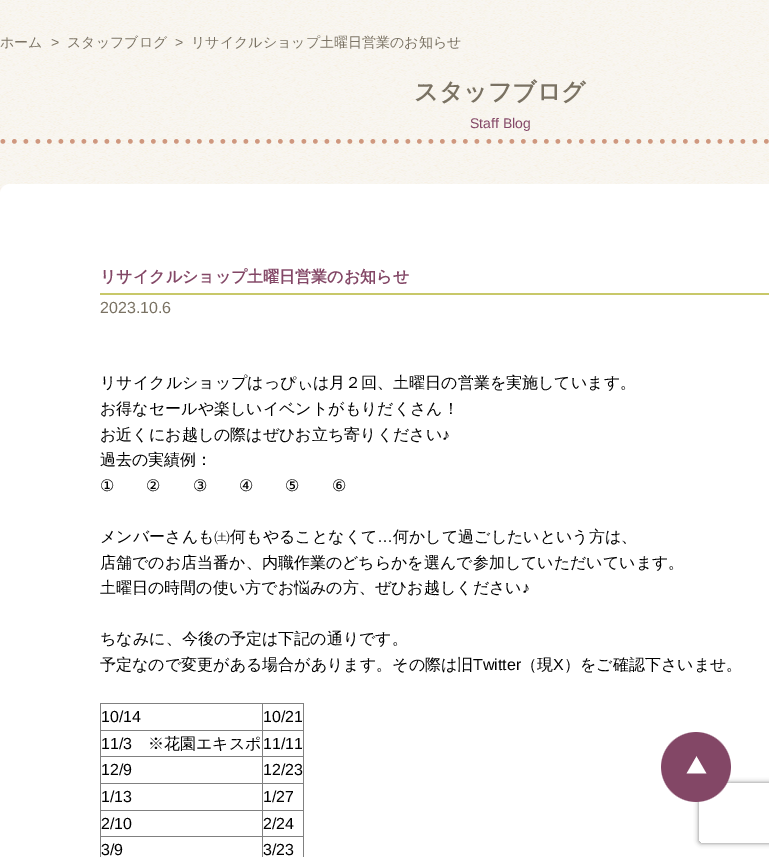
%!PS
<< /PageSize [769 857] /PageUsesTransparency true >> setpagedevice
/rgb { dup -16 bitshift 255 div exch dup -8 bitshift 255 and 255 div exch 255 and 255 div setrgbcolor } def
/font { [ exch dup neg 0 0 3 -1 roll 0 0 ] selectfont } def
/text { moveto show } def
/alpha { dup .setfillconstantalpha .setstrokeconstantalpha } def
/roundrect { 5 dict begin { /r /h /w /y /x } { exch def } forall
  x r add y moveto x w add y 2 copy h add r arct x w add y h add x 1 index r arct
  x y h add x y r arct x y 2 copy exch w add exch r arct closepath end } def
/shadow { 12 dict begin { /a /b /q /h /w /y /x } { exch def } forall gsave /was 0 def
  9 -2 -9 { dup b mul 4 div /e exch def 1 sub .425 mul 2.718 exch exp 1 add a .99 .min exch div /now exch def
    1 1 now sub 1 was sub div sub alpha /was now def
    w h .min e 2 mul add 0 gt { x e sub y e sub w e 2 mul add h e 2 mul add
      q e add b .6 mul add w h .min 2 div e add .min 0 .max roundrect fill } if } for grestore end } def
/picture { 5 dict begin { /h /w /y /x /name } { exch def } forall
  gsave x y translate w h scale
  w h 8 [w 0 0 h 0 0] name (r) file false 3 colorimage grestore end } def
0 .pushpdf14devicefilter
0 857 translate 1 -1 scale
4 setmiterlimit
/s1 { /WenQuanYiZenHei-Medium 14 font 16#7A7263 rgb } def
/s2 { /LiberationSans-Regular 14 font 16#7A7263 rgb } def
/s3 { /WenQuanYiZenHei-Bold 24 font 16#7A7263 rgb } def
/s4 { /LiberationSans-Regular 14 font 16#834766 rgb } def
/s5 { /WenQuanYiZenHei-Bold 16 font 16#834766 rgb } def
/s6 { /LiberationSans-Regular 16 font 16#7A7263 rgb } def
/s7 { /WenQuanYiZenHei-Medium 16 font 16#000000 rgb } def
/s8 { /LiberationSans-Regular 16 font 16#000000 rgb } def
/s9 { /DejaVuSans-Regular 16 font 16#000000 rgb } def
16#FFFFFF rgb
0 0 769 857 rectfill
(pic1.raw) 0 0 769 194 picture
s1
(ホーム) 0 47 text
s2
(>) 51 47 text
s1
(スタッフブログ) 67 47 text
s2
(>) 175 47 text
s1
(リサイクルショップ土曜日営業のお知らせ) 191 47 text
s3
(スタッフブログ) 414 100 text
s4
(Staff Blog) 470 128 text
(pic2.raw) 0 139 769 5 picture
16#FFFFFF rgb
0 184 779 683 10 roundrect fill
16#C8C869 rgb
100 293 669 2 rectfill
s5
(リサイクルショップ土曜日営業のお知らせ) 100 282 text
s6
(2023.10.6) 100 313 text
s7
(リサイクルショップはっぴぃは月２回、土曜日の営業を実施しています。) 100 388 text
(お得なセールや楽しいイベントがもりだくさん！) 100 414 text
(お近くにお越しの際はぜひお立ち寄りください) 100 440 text
s8
(♪) 442 440 text
s7
(過去の実績例：) 100 465 text
s9
(①) 100 491 text
(②) 146 491 text
(③) 193 491 text
(④) 239 491 text
(⑤) 285 491 text
(⑥) 332 491 text
s7
(メンバーさんも㈯何もやることなくて) 100 542 text
s8
(…) 377 542 text
s7
(何かして過ごしたいという方は、) 393 542 text
(店舗でのお店当番か、内職作業のどちらかを選んで参加していただいています。) 100 568 text
(土曜日の時間の使い方でお悩みの方、ぜひお越しください) 100 593 text
s8
(♪) 522 593 text
s7
(ちなみに、今後の予定は下記の通りです。) 100 644 text
(予定なので変更がある場合があります。その際は旧) 100 670 text
s8
(Twitter) 473 670 text
s7
(（現) 521 670 text
s8
(X) 553 670 text
s7
(）をご確認下さいませ。) 564 670 text
16#808080 rgb
100 703 204 1 rectfill
303 703 1 154 rectfill
100 703 1 154 rectfill
s8
(10/14) 101 722 text
16#808080 rgb
262 730 42 1 rectfill
262 756 42 1 rectfill
262 783 42 1 rectfill
262 810 42 1 rectfill
262 836 42 1 rectfill
262 836 1 21 rectfill
100 836 163 1 rectfill
262 810 1 27 rectfill
100 810 163 1 rectfill
262 783 1 28 rectfill
100 783 163 1 rectfill
262 756 1 28 rectfill
100 756 163 1 rectfill
262 730 1 27 rectfill
100 730 163 1 rectfill
262 703 1 28 rectfill
s8
(10/21) 263 722 text
(11/3) 101 749 text
s7
(※花園エキスポ) 148 749 text
s8
(11/11) 263 749 text
(12/9) 101 775 text
(12/23) 263 775 text
(1/13) 101 802 text
(1/27) 263 802 text
(2/10) 101 829 text
(2/24) 263 829 text
(3/9) 101 855 text
(3/23) 263 855 text
gsave
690 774 moveto 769 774 lineto 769 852 lineto 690 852 lineto closepath 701 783 moveto 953 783 lineto 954 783 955 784 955 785 curveto 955 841 lineto 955 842 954 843 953 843 curveto 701 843 lineto 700 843 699 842 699 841 curveto 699 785 lineto 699 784 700 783 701 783 curveto closepath eoclip newpath
16#808080 rgb
699 783 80 60 2 2.5 1 shadow
grestore
(pic3.raw) 661 732 70 70 picture
.poppdf14devicefilter showpage
